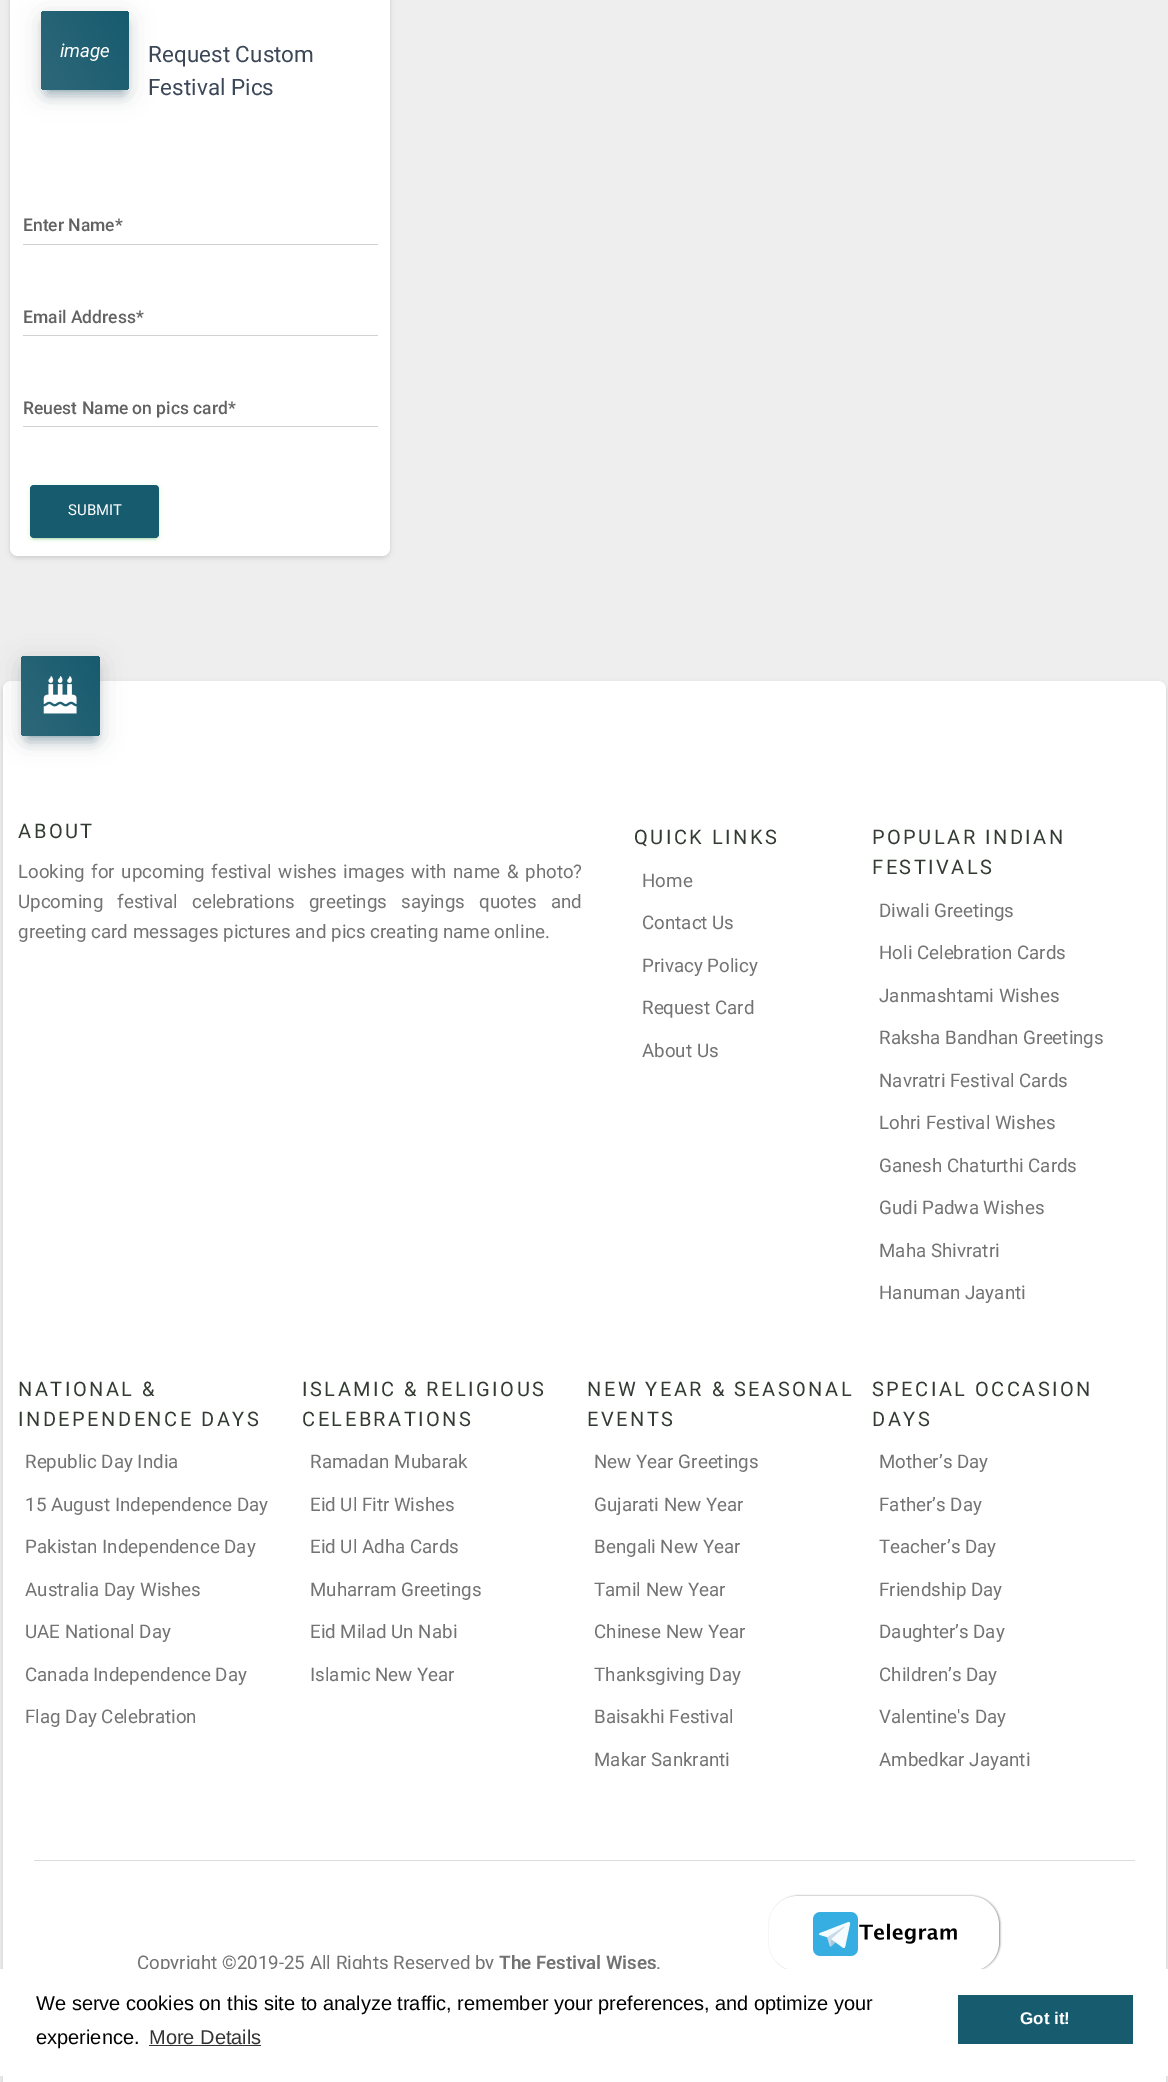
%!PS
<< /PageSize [1168 2082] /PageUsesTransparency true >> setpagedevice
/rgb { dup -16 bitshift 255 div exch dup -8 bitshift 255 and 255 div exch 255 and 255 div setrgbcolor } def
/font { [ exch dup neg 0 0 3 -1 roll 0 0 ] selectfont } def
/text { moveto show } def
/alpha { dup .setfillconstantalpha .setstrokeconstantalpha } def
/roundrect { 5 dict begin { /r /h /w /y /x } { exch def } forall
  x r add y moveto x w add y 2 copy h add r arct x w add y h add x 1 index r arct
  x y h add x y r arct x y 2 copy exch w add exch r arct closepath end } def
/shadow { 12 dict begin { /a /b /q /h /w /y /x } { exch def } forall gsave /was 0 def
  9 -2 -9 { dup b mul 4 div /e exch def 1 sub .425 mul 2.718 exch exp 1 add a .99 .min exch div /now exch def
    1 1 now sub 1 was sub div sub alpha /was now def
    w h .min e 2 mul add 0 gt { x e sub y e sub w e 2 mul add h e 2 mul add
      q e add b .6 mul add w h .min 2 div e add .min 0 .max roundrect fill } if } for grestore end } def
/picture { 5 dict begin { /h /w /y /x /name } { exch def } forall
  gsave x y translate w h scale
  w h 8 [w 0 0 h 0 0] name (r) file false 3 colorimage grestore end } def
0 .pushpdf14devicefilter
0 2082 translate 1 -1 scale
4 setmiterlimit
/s1 { /Roboto-Italic 18.75 font 16#FFFFFF rgb } def
/s2 { /Roboto-Regular 22.5 font 16#3C4858 rgb } def
/s3 { /Roboto-Medium 17.5 font 16#626262 rgb } def
/s4 { /Roboto-Regular 15 font 16#FFFFFF rgb } def
/s5 { /Roboto-Regular 18.75 font 16#737373 rgb } def
/s6 { /Roboto-SemiBold 18.75 font 16#737373 rgb } def
/s7 { /LiberationSans-Regular 20 font 16#000000 rgb } def
/s8 { /LiberationSans-Regular 20 font 16#333333 rgb } def
/s9 { /LiberationSans-Bold 17 font 16#FFFFFF rgb } def
16#EEEEEE rgb
0 0 1168 2082 rectfill
16#000000 rgb
10 -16 380 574 8 2.5 0.14 shadow
16#FFFFFF rgb
10 -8 380 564 8 roundrect fill
16#175B6F rgb
48 26 75 67 0 6 0.4 shadow
16#000000 rgb
41 16 88 79 4 12.5 0.14 shadow
gsave 41 11 88 79 4 roundrect clip newpath
<< /ShadingType 2 /ColorSpace /DeviceRGB /Coords [35 79 135 22] /Extend [true true] /Function << /FunctionType 2 /Domain [0 1] /C0 [0.18 0.408 0.475] /C1 [0.09 0.357 0.435] /N 1 >> >> shfill grestore
s1
(image) 60 57 text
s2
(Request Custom) 148 62 text
(Festival Pics) 148 95 text
s3
(Enter Name*) 23 231 text
16#D2D2D2 rgb
23 244 355 1 rectfill
s3
(Email Address*) 23 323 text
16#D2D2D2 rgb
23 335 355 1 rectfill
s3
(Reuest Name on pics card*) 23 414 text
16#D2D2D2 rgb
23 426 355 1 rectfill
16#4CAF50 rgb
30 486 129 53 4 3 0.12 shadow
33 491 123 48 1 0.5 0.2 shadow
30 488 129 52 4 1 0.14 shadow
16#175B6F rgb
30 485 129 53 4 roundrect fill
s4
(SUBMIT) 68 515 text
16#000000 rgb
3 683 1163 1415 8 2.5 0.14 shadow
16#FFFFFF rgb
3 681 1163 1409 8 roundrect fill
16#175B6F rgb
28 671 66 68 0 6 0.4 shadow
16#000000 rgb
21 661 79 80 4 12.5 0.14 shadow
gsave 21 656 79 80 4 roundrect clip newpath
<< /ShadingType 2 /ColorSpace /DeviceRGB /Coords [14 723 107 669] /Extend [true true] /Function << /FunctionType 2 /Domain [0 1] /C0 [0.18 0.408 0.475] /C1 [0.09 0.357 0.435] /N 1 >> >> shfill grestore
(pic1.raw) 43 676 34 38 picture
/Roboto-Regular 20 font
16#333B33 rgb
18 838 moveto 2.5 0 (ABOUT) ashow
/Roboto-Regular 18.75 font
16#737373 rgb
18 878 moveto 2 0 32 (Looking for upcoming festival wishes images with name & photo?) widthshow
18 908 moveto 9.5 0 32 (Upcoming festival celebrations greetings sayings quotes and) widthshow
(greeting card messages pictures and pics creating name online.) 18 938 text
/Roboto-Regular 20 font
16#333B33 rgb
634 844 moveto 2.5 0 (QUICK LINKS) ashow
s5
(Home) 642 887 text
(Contact Us) 642 929 text
(Privacy Policy) 642 972 text
(Request Card) 642 1014 text
(About Us) 642 1057 text
/Roboto-Regular 20 font
16#333B33 rgb
872 844 moveto 2.5 0 (POPULAR INDIAN) ashow
872 874 moveto 2.5 0 (FESTIVALS) ashow
s5
(Diwali Greetings) 879 917 text
(Holi Celebration Cards) 879 959 text
(Janmashtami Wishes) 879 1002 text
(Raksha Bandhan Greetings) 879 1044 text
(Navratri Festival Cards) 879 1087 text
(Lohri Festival Wishes) 879 1129 text
(Ganesh Chaturthi Cards) 879 1172 text
(Gudi Padwa Wishes) 879 1214 text
(Maha Shivratri) 879 1257 text
(Hanuman Jayanti) 879 1299 text
/Roboto-Regular 20 font
16#333B33 rgb
18 1396 moveto 2.5 0 (NATIONAL &) ashow
18 1426 moveto 2.5 0 (INDEPENDENCE DAYS) ashow
s5
(Republic Day India) 25 1468 text
(15 August Independence Day) 25 1511 text
(Pakistan Independence Day) 25 1553 text
(Australia Day Wishes) 25 1596 text
(UAE National Day) 25 1638 text
(Canada Independence Day) 25 1681 text
(Flag Day Celebration) 25 1723 text
/Roboto-Regular 20 font
16#333B33 rgb
302 1396 moveto 2.5 0 (ISLAMIC & RELIGIOUS) ashow
302 1426 moveto 2.5 0 (CELEBRATIONS) ashow
s5
(Ramadan Mubarak) 310 1468 text
(Eid Ul Fitr Wishes) 310 1511 text
(Eid Ul Adha Cards) 310 1553 text
(Muharram Greetings) 310 1596 text
(Eid Milad Un Nabi) 310 1638 text
(Islamic New Year) 310 1681 text
/Roboto-Regular 20 font
16#333B33 rgb
587 1396 moveto 2.5 0 (NEW YEAR & SEASONAL) ashow
587 1426 moveto 2.5 0 (EVENTS) ashow
s5
(New Year Greetings) 594 1468 text
(Gujarati New Year) 594 1511 text
(Bengali New Year) 594 1553 text
(Tamil New Year) 594 1596 text
(Chinese New Year) 594 1638 text
(Thanksgiving Day) 594 1681 text
(Baisakhi Festival) 594 1723 text
(Makar Sankranti) 594 1766 text
/Roboto-Regular 20 font
16#333B33 rgb
872 1396 moveto 2.5 0 (SPECIAL OCCASION) ashow
872 1426 moveto 2.5 0 (DAYS) ashow
s5
(Mother’s Day) 879 1468 text
(Father’s Day) 879 1511 text
(Teacher’s Day) 879 1553 text
(Friendship Day) 879 1596 text
(Daughter’s Day) 879 1638 text
(Children’s Day) 879 1681 text
(Valentine's Day) 879 1723 text
(Ambedkar Jayanti) 879 1766 text
16#DDDDDD rgb
34 1860 1101 1 rectfill
s5
(Copyright ©2019-25 All Rights Reserved by) 137 1969 text
s6
(The Festival Wises) 499 1969 text
s5
(.) 656 1969 text
16#888888 rgb
770 1896 230 75 29 1 1 shadow
16#FFFFFF rgb
769 1896 230 75 29 roundrect fill
(pic2.raw) 813 1912 144 44 picture
0 1969 1168 107 rectfill
s7
(We serve cookies on this site to analyze traffic, remember your preferences, and optimize your) 36 2010 text
(experience.) 36 2044 text
s8
(More Details) 149 2044 text
149 2045 112 1 rectfill
16#175B6F rgb
958 1995 175 49 rectfill
s9
(Got it!) 1020 2024 text
.poppdf14devicefilter showpage
